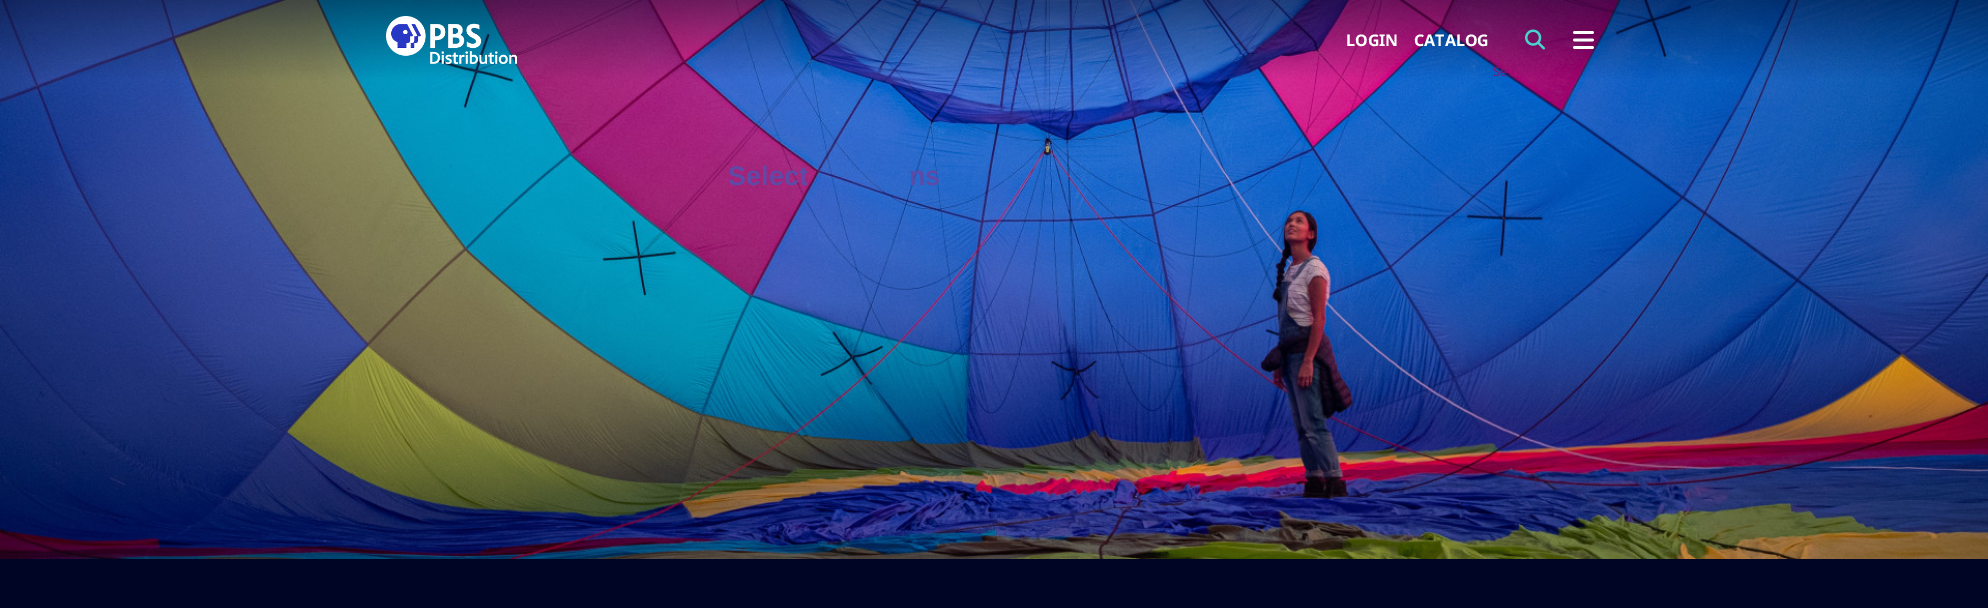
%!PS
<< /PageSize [1988 608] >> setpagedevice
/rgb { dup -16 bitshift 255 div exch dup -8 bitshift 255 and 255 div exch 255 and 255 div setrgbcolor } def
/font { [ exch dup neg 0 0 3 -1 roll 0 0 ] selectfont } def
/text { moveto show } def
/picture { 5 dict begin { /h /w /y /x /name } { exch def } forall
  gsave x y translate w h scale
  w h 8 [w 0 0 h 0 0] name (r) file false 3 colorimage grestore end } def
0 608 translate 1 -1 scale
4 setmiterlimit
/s1 { /NotoSans-Bold 16 font 16#FFFFFF rgb } def
/s2 { /NotoSans-Regular 13 font 16#7C1878 rgb } def
/s3 { /LiberationSans-Bold 27 font 16#5E4AA7 rgb } def
16#000525 rgb
0 0 1988 608 rectfill
(pic4.raw) 0 0 1988 559 picture
(pic1.raw) 386 16 131 48 picture
s1
(LOGIN) 1346 46 text
(CATALOG) 1414 46 text
(pic2.raw) 1573 31 21 18 picture
(pic3.raw) 1525 29 20 21 picture
s2
(Se) 1493 76 text
s3
(Select) 728 185 text
(ns) 909 185 text
showpage
